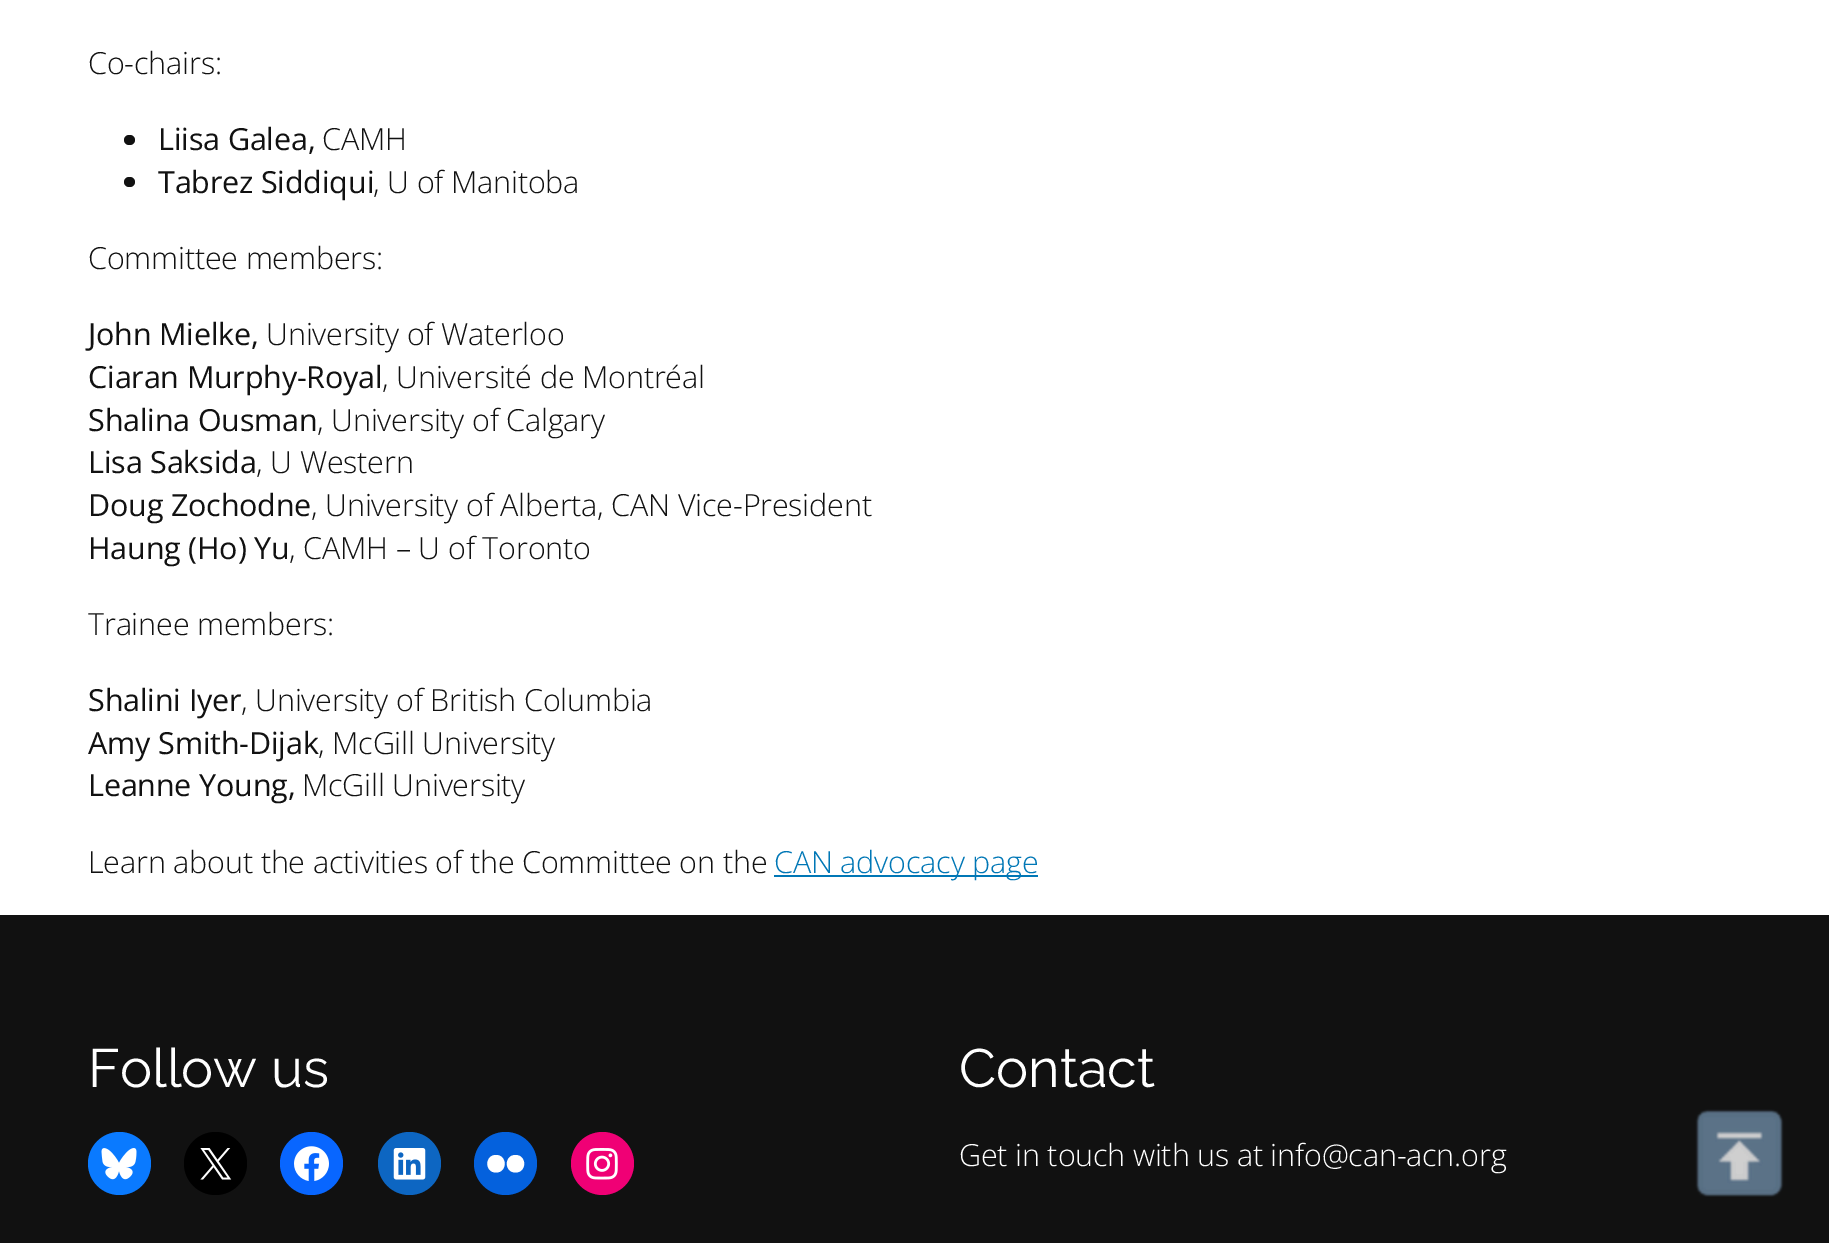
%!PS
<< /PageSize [1829 1243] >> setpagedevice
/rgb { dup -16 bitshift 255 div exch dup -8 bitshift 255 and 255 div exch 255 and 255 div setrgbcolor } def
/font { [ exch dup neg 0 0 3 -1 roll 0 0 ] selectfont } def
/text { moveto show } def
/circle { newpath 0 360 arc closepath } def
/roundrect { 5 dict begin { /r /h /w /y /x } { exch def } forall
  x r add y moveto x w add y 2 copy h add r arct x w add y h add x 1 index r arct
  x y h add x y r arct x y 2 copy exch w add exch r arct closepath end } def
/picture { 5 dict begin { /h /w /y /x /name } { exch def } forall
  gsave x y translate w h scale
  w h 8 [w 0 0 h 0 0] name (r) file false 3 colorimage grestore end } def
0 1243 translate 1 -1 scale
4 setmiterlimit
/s1 { /Raleway-Regular 54 font 16#FFFFFF rgb } def
16#FFFFFF rgb
0 0 1829 1243 rectfill
/OpenSans-Light 30.5 font
16#111111 rgb
88 74 moveto -0.18 0 (Co-chairs:) ashow
124 135 11 10 5 roundrect fill
/OpenSans-Regular 30.5 font
158 150 moveto -0.18 0 (Liisa Galea,) ashow
/OpenSans-Light 30.5 font
322 150 moveto -0.18 0 (CAMH) ashow
124 177 11 10 5 roundrect fill
/OpenSans-Regular 30.5 font
158 193 moveto -0.18 0 (Tabrez Siddiqui) ashow
/OpenSans-Light 30.5 font
373 193 moveto -0.18 0 (, U of Manitoba) ashow
88 269 moveto -0.18 0 (Committee members:) ashow
/OpenSans-Regular 30.5 font
88 345 moveto -0.18 0 (John Mielke,) ashow
/OpenSans-Light 30.5 font
266 345 moveto -0.18 0 (University of Waterloo) ashow
/OpenSans-Regular 30.5 font
88 388 moveto -0.18 0 (Ciaran Murphy-Royal) ashow
/OpenSans-Light 30.5 font
382 388 moveto -0.18 0 (, Université de Montréal) ashow
/OpenSans-Regular 30.5 font
88 431 moveto -0.18 0 (Shalina Ousman) ashow
/OpenSans-Light 30.5 font
317 431 moveto -0.18 0 (, University of Calgary) ashow
/OpenSans-Regular 30.5 font
88 473 moveto -0.18 0 (Lisa Saksida) ashow
/OpenSans-Light 30.5 font
256 473 moveto -0.18 0 (, U Western) ashow
/OpenSans-Regular 30.5 font
88 516 moveto -0.18 0 (Doug Zochodne) ashow
/OpenSans-Light 30.5 font
311 516 moveto -0.18 0 (, University of Alberta, CAN Vice-President) ashow
/OpenSans-Regular 30.5 font
88 559 moveto -0.18 0 (Haung \(Ho\) Yu) ashow
/OpenSans-Light 30.5 font
289 559 moveto -0.18 0 (, CAMH – U of Toronto) ashow
88 635 moveto -0.18 0 (Trainee members:) ashow
/OpenSans-Regular 30.5 font
88 711 moveto -0.18 0 (Shalini Iyer) ashow
/OpenSans-Light 30.5 font
241 711 moveto -0.18 0 (, University of British Columbia) ashow
/OpenSans-Regular 30.5 font
88 754 moveto -0.18 0 (Amy Smith-Dijak) ashow
/OpenSans-Light 30.5 font
318 754 moveto -0.18 0 (, McGill University) ashow
/OpenSans-Regular 30.5 font
88 796 moveto -0.18 0 (Leanne Young,) ashow
/OpenSans-Light 30.5 font
302 796 moveto -0.18 0 (McGill University) ashow
88 873 moveto -0.18 0 (Learn about the activities of the Committee on the) ashow
16#0077B6 rgb
774 875 264 2 rectfill
774 873 moveto -0.18 0 (CAN advocacy page) ashow
16#111111 rgb
0 915 1829 328 rectfill
s1
(Follow us) 88 1087 text
16#0A7AFF rgb
119.5 1163.5 31.5 circle fill
(pic1.raw) 101 1148 36 32 picture
16#000000 rgb
215.5 1163.5 31.5 circle fill
(pic2.raw) 200 1148 32 32 picture
16#0866FF rgb
311.5 1163.5 31.5 circle fill
(pic3.raw) 294 1146 35 35 picture
16#0D66C2 rgb
409.5 1163.5 31.5 circle fill
(pic4.raw) 393 1148 33 32 picture
16#0461DD rgb
505.5 1163.5 31.5 circle fill
16#FFFFFF rgb
496 1155 moveto 484.5 1155 484.5 1172.5 496 1172.5 curveto 507.5 1172.5 507.5 1155 496 1155 curveto closepath 515.5 1155 moveto 504 1155 504 1172.5 515.5 1172.5 curveto 527 1172.5 527 1155 515.5 1155 curveto closepath fill
16#F00075 rgb
602.5 1163.5 31.5 circle fill
(pic5.raw) 586 1148 32 32 picture
s1
(Contact) 959 1087 text
/OpenSans-Light 30.5 font
959 1166 moveto -0.18 0 (Get in touch with us at info@can-acn.org) ashow
(pic6.raw) 1695 1109 89 88 picture
showpage
